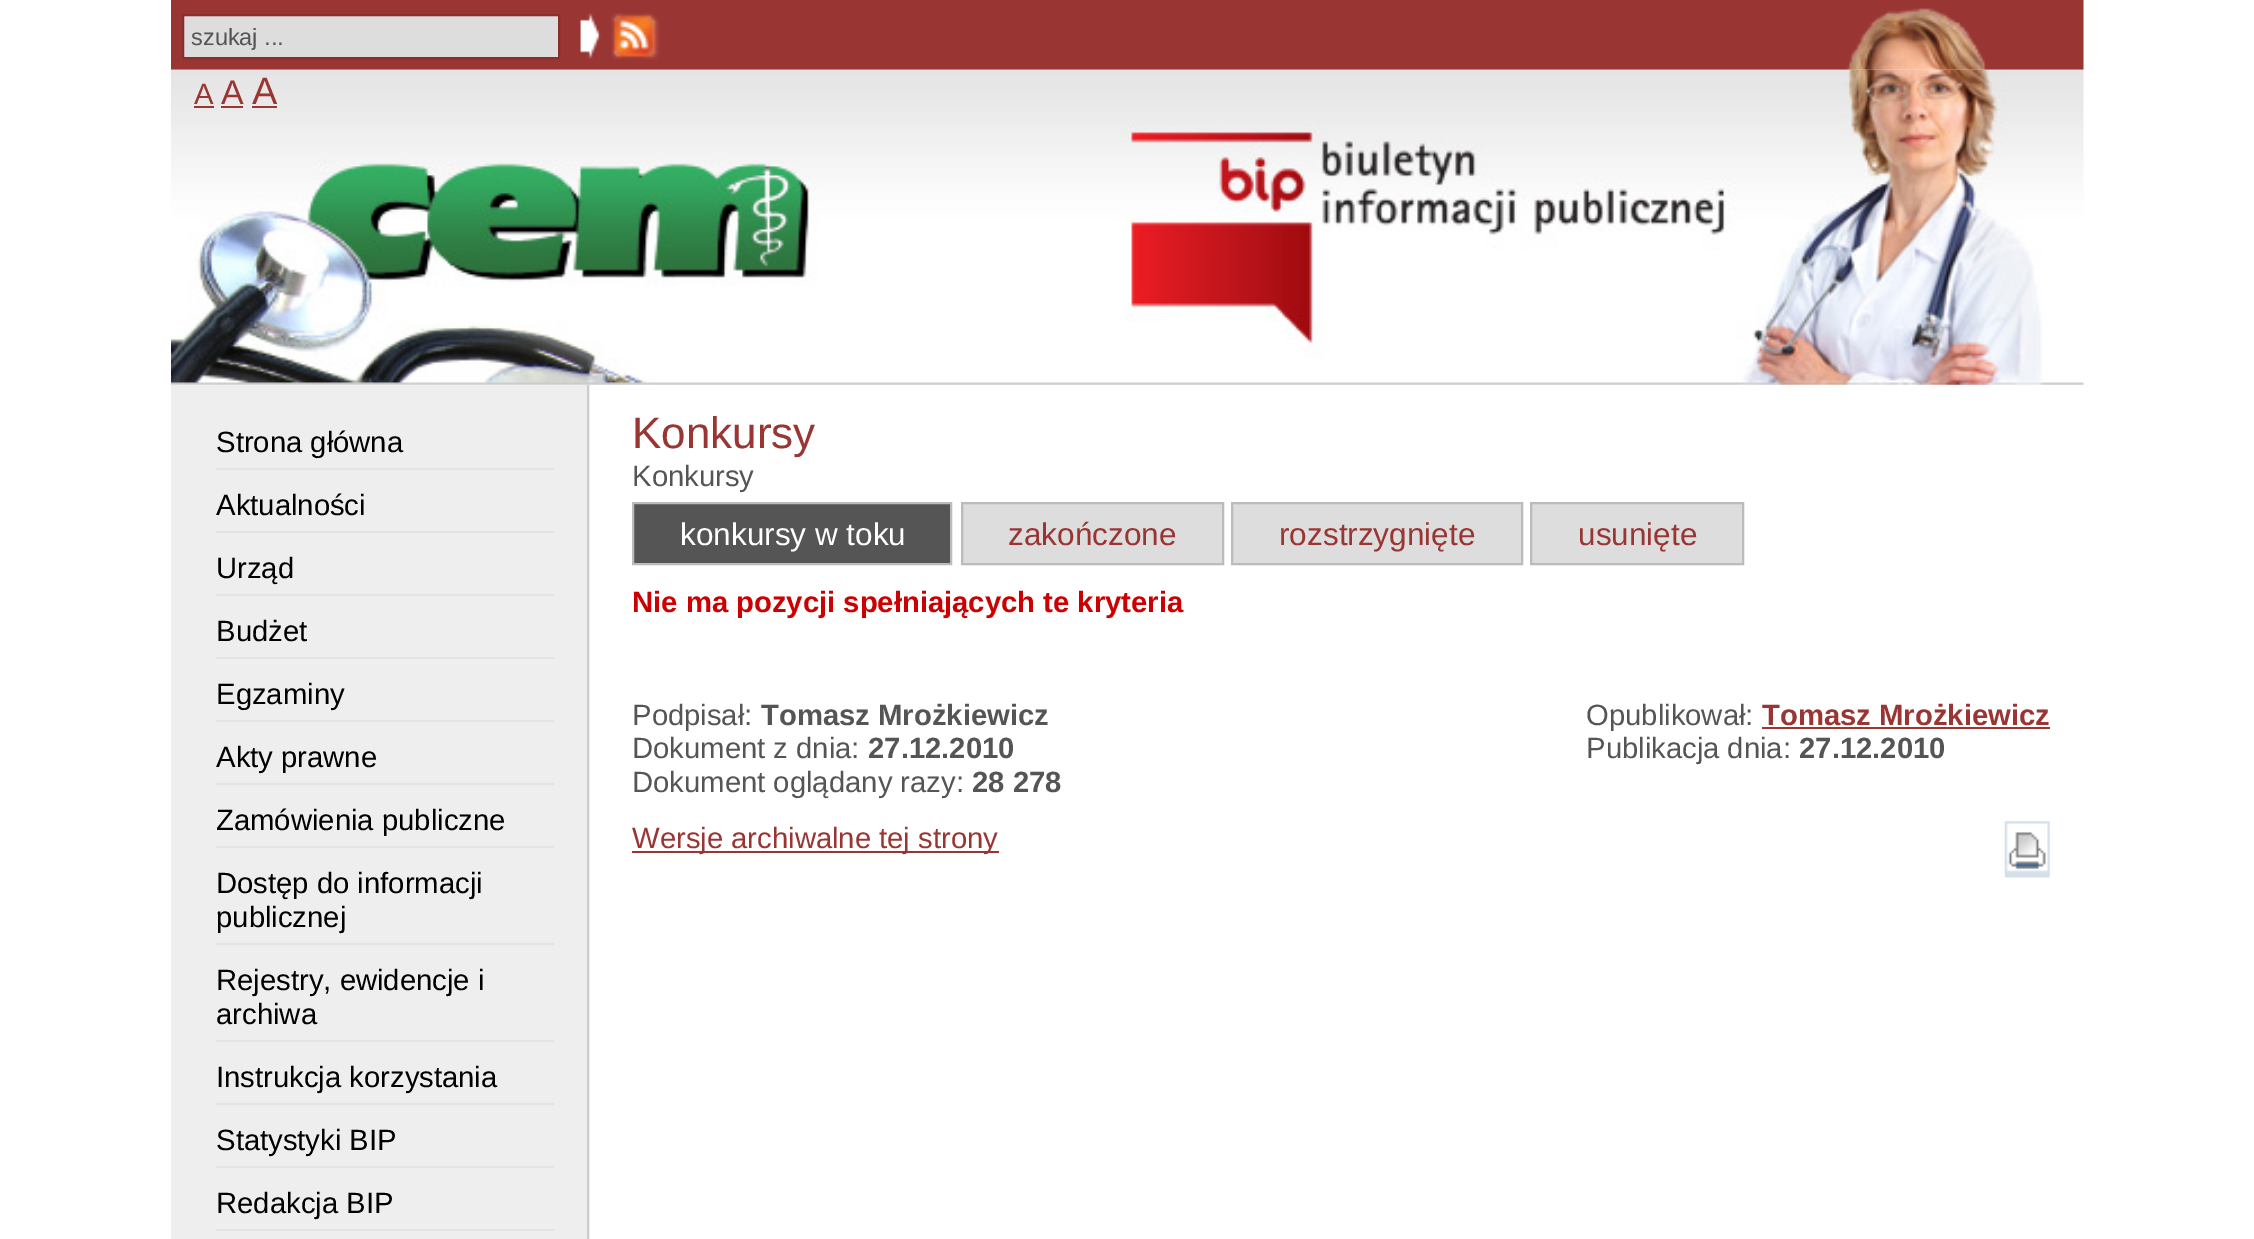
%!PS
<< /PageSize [2254 1239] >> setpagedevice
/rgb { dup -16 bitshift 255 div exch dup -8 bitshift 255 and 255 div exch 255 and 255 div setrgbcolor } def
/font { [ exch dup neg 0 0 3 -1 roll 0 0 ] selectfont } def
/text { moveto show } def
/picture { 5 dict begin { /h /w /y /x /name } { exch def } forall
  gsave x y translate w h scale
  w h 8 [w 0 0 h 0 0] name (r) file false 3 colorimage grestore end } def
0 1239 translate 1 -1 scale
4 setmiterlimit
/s1 { /LiberationSans-Regular 23.5 font 16#555555 rgb } def
/s2 { /LiberationSans-Regular 29.25 font 16#993533 rgb } def
/s3 { /LiberationSans-Regular 34 font 16#993533 rgb } def
/s4 { /LiberationSans-Regular 38 font 16#993533 rgb } def
/s5 { /LiberationSans-Regular 29.25 font 16#000000 rgb } def
/s6 { /LiberationSans-Regular 44 font 16#993533 rgb } def
/s7 { /LiberationSans-Regular 29.25 font 16#555555 rgb } def
/s8 { /LiberationSans-Regular 31.5 font 16#FFFFFF rgb } def
/s9 { /LiberationSans-Regular 31.5 font 16#993533 rgb } def
/s10 { /LiberationSans-Bold 29.25 font 16#CC0000 rgb } def
/s11 { /LiberationSans-Bold 29.25 font 16#555555 rgb } def
/s12 { /LiberationSans-Bold 29.25 font 16#993533 rgb } def
16#FFFFFF rgb
0 0 2254 1239 rectfill
(pic1.raw) 171 69 8 316 picture
(pic2.raw) 171 0 1913 70 picture
(pic3.raw) 171 69 1913 316 picture
16#DDDDDD rgb
183 15 moveto 559 15 lineto 559 58 lineto 183 58 lineto closepath gsave fill grestore
16#892E2D rgb
2 setlinewidth
stroke
s1
(szukaj ...) 191 45 text
(pic4.raw) 580 13 21 46 picture
(pic5.raw) 611 13 49 47 picture
s2
(A) 194 104 text
194 106 20 2 rectfill
s3
(A) 221 104 text
221 106 22 2 rectfill
s4
(A) 252 104 text
252 106 25 2 rectfill
16#EEEEEE rgb
171 385 419 854 rectfill
16#CCCCCC rgb
587 385 2 854 rectfill
16#E3E3E3 rgb
216 468 338 2 rectfill
s5
(Strona główna) 216 452 text
16#E3E3E3 rgb
216 531 338 2 rectfill
s5
(Aktualności) 216 515 text
16#E3E3E3 rgb
216 594 338 2 rectfill
s5
(Urząd) 216 578 text
16#E3E3E3 rgb
216 657 338 2 rectfill
s5
(Budżet) 216 641 text
16#E3E3E3 rgb
216 720 338 2 rectfill
s5
(Egzaminy) 216 704 text
16#E3E3E3 rgb
216 783 338 2 rectfill
s5
(Akty prawne) 216 767 text
16#E3E3E3 rgb
216 846 338 2 rectfill
s5
(Zamówienia publiczne) 216 830 text
16#E3E3E3 rgb
216 943 338 2 rectfill
s5
(Dostęp do informacji) 216 893 text
(publicznej) 216 927 text
16#E3E3E3 rgb
216 1040 338 2 rectfill
s5
(Rejestry, ewidencje i) 216 990 text
(archiwa) 216 1024 text
16#E3E3E3 rgb
216 1103 338 2 rectfill
s5
(Instrukcja korzystania) 216 1087 text
16#E3E3E3 rgb
216 1166 338 2 rectfill
s5
(Statystyki BIP) 216 1150 text
16#E3E3E3 rgb
216 1229 338 2 rectfill
s5
(Redakcja BIP) 216 1213 text
s6
(Konkursy) 632 448 text
s7
(Konkursy) 632 486 text
633 503 moveto 951 503 lineto 951 564 lineto 633 564 lineto closepath gsave fill grestore
16#BBBBBB rgb
stroke
s8
(konkursy w toku) 680 545 text
16#DDDDDD rgb
962 503 moveto 1223 503 lineto 1223 564 lineto 962 564 lineto closepath gsave fill grestore
16#BBBBBB rgb
stroke
s9
(zakończone) 1008 545 text
16#DDDDDD rgb
1232 503 moveto 1522 503 lineto 1522 564 lineto 1232 564 lineto closepath gsave fill grestore
16#BBBBBB rgb
stroke
s9
(rozstrzygnięte) 1279 545 text
16#DDDDDD rgb
1531 503 moveto 1743 503 lineto 1743 564 lineto 1531 564 lineto closepath gsave fill grestore
16#BBBBBB rgb
stroke
s9
(usunięte) 1578 545 text
s10
(Nie ma pozycji spełniających te kryteria) 632 612 text
s7
(Podpisał:) 632 725 text
s11
(Tomasz Mrożkiewicz) 761 725 text
s7
(Opublikował:) 1586 725 text
s12
(Tomasz Mrożkiewicz) 1762 725 text
1762 727 288 2 rectfill
s7
(Publikacja dnia:) 1586 758 text
s11
(27.12.2010) 1799 758 text
s7
(Dokument z dnia:) 632 758 text
s11
(27.12.2010) 868 758 text
s7
(Dokument oglądany razy:) 632 792 text
s11
(28 278) 972 792 text
16#993533 rgb
632 851 367 2 rectfill
s2
(Wersje archiwalne tej strony) 632 848 text
(pic6.raw) 2004 821 46 57 picture
showpage
